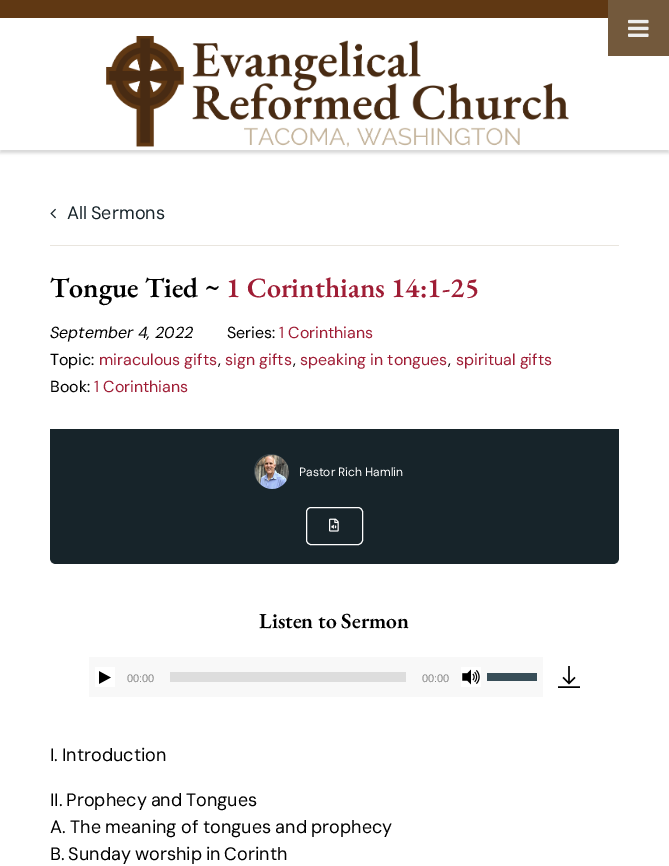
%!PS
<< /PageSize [669 866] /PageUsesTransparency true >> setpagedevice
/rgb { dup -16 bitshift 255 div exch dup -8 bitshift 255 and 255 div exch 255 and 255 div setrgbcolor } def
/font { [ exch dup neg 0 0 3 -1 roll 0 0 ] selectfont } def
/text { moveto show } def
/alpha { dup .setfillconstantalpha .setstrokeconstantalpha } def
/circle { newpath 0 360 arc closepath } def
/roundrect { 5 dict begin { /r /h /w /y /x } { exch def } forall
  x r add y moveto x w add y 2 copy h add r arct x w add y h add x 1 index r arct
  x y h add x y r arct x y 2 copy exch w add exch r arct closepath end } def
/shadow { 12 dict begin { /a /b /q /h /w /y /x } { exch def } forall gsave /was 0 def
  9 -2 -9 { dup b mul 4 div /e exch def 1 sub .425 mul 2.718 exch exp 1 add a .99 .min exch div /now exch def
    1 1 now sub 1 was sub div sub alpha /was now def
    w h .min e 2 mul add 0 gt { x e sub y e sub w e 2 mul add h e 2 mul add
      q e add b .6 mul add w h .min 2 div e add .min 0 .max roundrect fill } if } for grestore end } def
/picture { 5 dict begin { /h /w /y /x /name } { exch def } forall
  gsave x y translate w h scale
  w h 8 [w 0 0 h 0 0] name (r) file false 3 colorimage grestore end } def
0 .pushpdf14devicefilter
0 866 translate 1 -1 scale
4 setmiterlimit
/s1 { /EBGaramond-SemiBold 28 font 16#000000 rgb } def
/s2 { /EBGaramond-SemiBold 28 font 16#9F1D35 rgb } def
/s3 { /DMSans-Italic 16 font 16#000000 rgb } def
/s4 { /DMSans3-Regular 16 font 16#000000 rgb } def
/s5 { /DMSans3-Regular 16 font 16#9F1D35 rgb } def
/s6 { /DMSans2-Regular 12 font 16#FFFFFF rgb } def
/s7 { /EBGaramond-SemiBold 21.5 font 16#000000 rgb } def
/s8 { /LiberationSans-Regular 11 font 16#888888 rgb } def
16#FFFFFF rgb
0 0 669 866 rectfill
16#646464 rgb
0 3 669 150 0 1.5 0.25 shadow
16#FFFFFF rgb
0 18 669 132 rectfill
16#73593C rgb
608 0 61 56 rectfill
(pic1.raw) 628 19 21 18 picture
16#603813 rgb
0 0 608 18 rectfill
(pic2.raw) 106 36 463 112 picture
16#E9E5DE rgb
50 245 569 1 rectfill
(pic3.raw) 50 208 6 11 picture
/DMSans-Regular 18 font
16#17242A rgb
67 219 moveto -1 0 32 (All Sermons) widthshow
s1
(Tongue Tied ~) 50 297 text
s2
(1 Corinthians 14:1-25) 226 297 text
s3
(September 4, 2022) 50 338 text
s4
(Series:) 227 338 text
s5
(1 Corinthians) 279 338 text
s4
(Topic:) 50 365 text
s5
(miraculous gifts) 99 365 text
s4
(,) 218 365 text
s5
(sign gifts) 225 365 text
s4
(,) 293 365 text
s5
(speaking in tongues) 300 365 text
s4
(,) 448 365 text
s5
(spiritual gifts) 456 365 text
s4
(Book:) 50 392 text
s5
(1 Corinthians) 94 392 text
16#17242A rgb
50 429 moveto 619 429 lineto 619 558 lineto 619 561.5 616.5 564 613 564 curveto 56 564 lineto 52.5 564 50 561.5 50 558 curveto closepath fill
16#3C474C rgb
271 471 16.5 circle stroke
(pic4.raw) 255 455 34 34 picture
s6
(Pastor Rich Hamlin) 299 476 text
306.5 507.5 56 37 4.5 roundrect stroke
(pic5.raw) 329 518 10 14 picture
s7
(Listen to Sermon) 259 628 text
16#F8F8F8 rgb
89 657 454 40 rectfill
16#FFFFFF rgb
95 667 20 20 rectfill
(pic6.raw) 99 671 12 13 picture
s8
(00:00) 127 682 text
16#DDDDDD rgb
170 672 236 10 rectfill
s8
(00:00) 422 682 text
16#FFFFFF rgb
461 667 20 20 rectfill
(pic7.raw) 462 669 18 16 picture
16#384E58 rgb
487 673 50 8 rectfill
(pic8.raw) 558 666 22 22 picture
/DMSans-Regular 18 font
16#000000 rgb
50 761 moveto -1 0 32 (I. Introduction) widthshow
50 806 moveto -1 0 32 (II. Prophecy and Tongues) widthshow
50 833 moveto -0.5 0 32 (A. The meaning of tongues and prophecy) widthshow
50 860 moveto -1 0 32 (B. Sunday worship in Corinth) widthshow
.poppdf14devicefilter showpage
